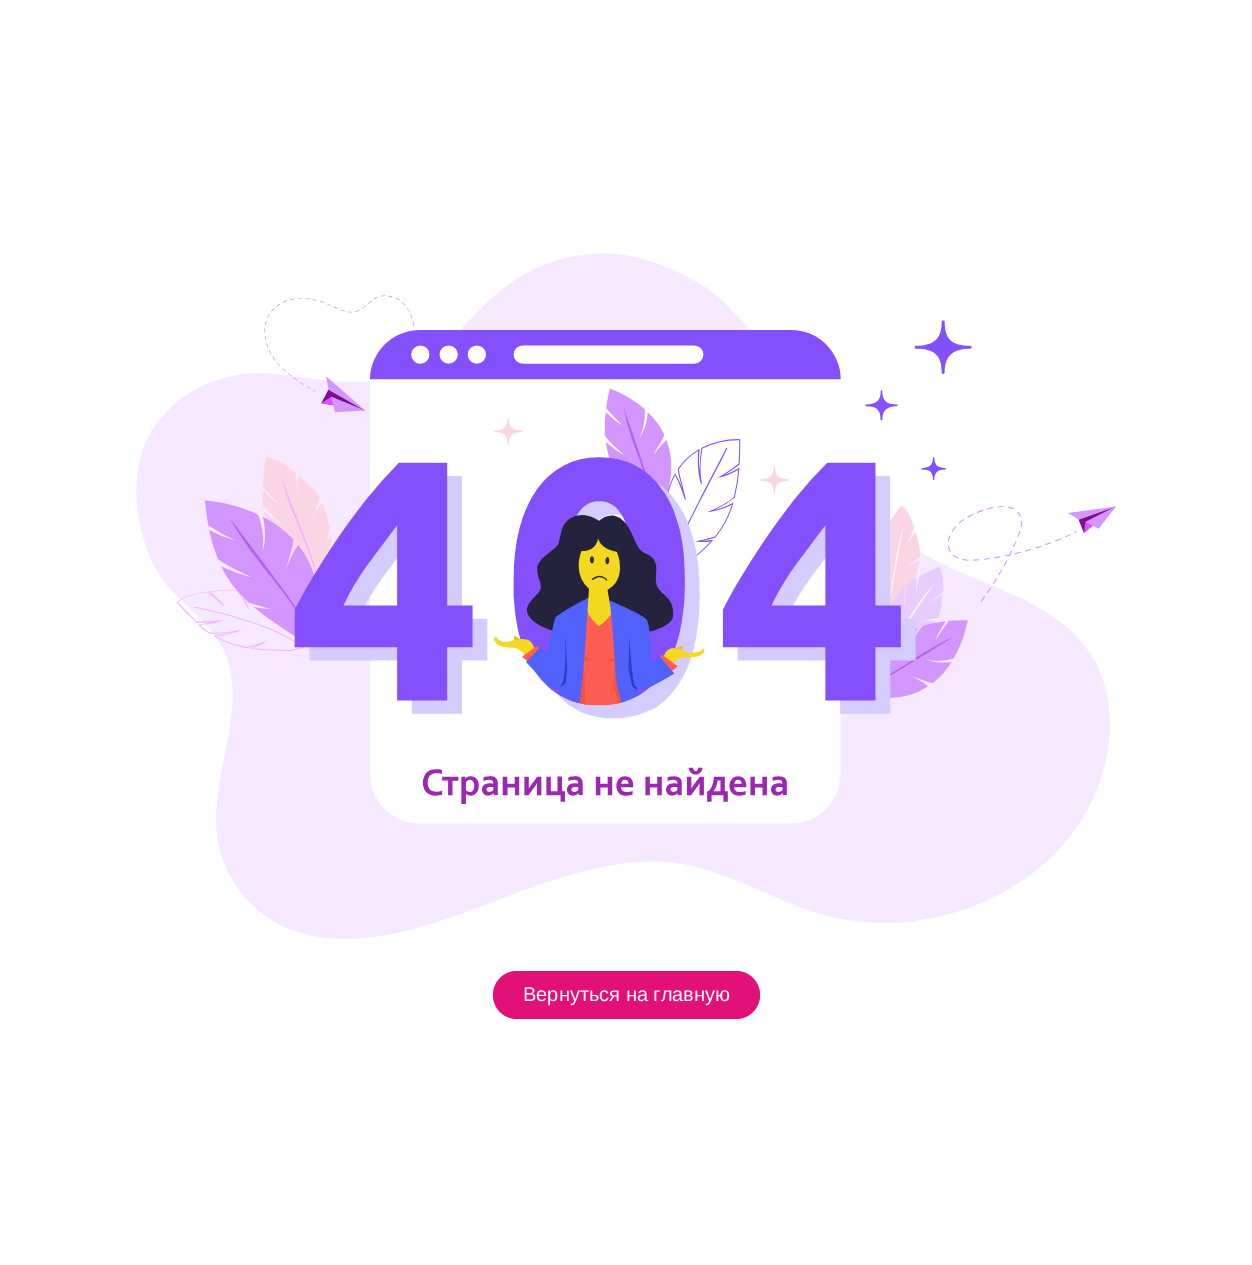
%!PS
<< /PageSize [1252 1265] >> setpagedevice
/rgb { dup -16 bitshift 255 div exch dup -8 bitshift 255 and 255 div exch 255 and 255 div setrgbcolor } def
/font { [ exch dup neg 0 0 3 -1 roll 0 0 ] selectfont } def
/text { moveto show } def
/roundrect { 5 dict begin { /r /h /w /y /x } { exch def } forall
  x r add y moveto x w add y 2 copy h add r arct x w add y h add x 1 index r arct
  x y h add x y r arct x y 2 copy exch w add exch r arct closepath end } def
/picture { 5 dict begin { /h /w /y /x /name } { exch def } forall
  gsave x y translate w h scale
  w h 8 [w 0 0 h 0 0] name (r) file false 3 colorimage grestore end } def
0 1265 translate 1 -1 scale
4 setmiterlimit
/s1 { /LiberationSans-Regular 20 font 16#FFFFFF rgb } def
16#FFFFFF rgb
0 0 1252 1265 rectfill
(pic1.raw) 136 253 980 686 picture
16#E21178 rgb
493 971 267 48 24 roundrect fill
s1
(Вернуться на главную) 523 1001 text
showpage
